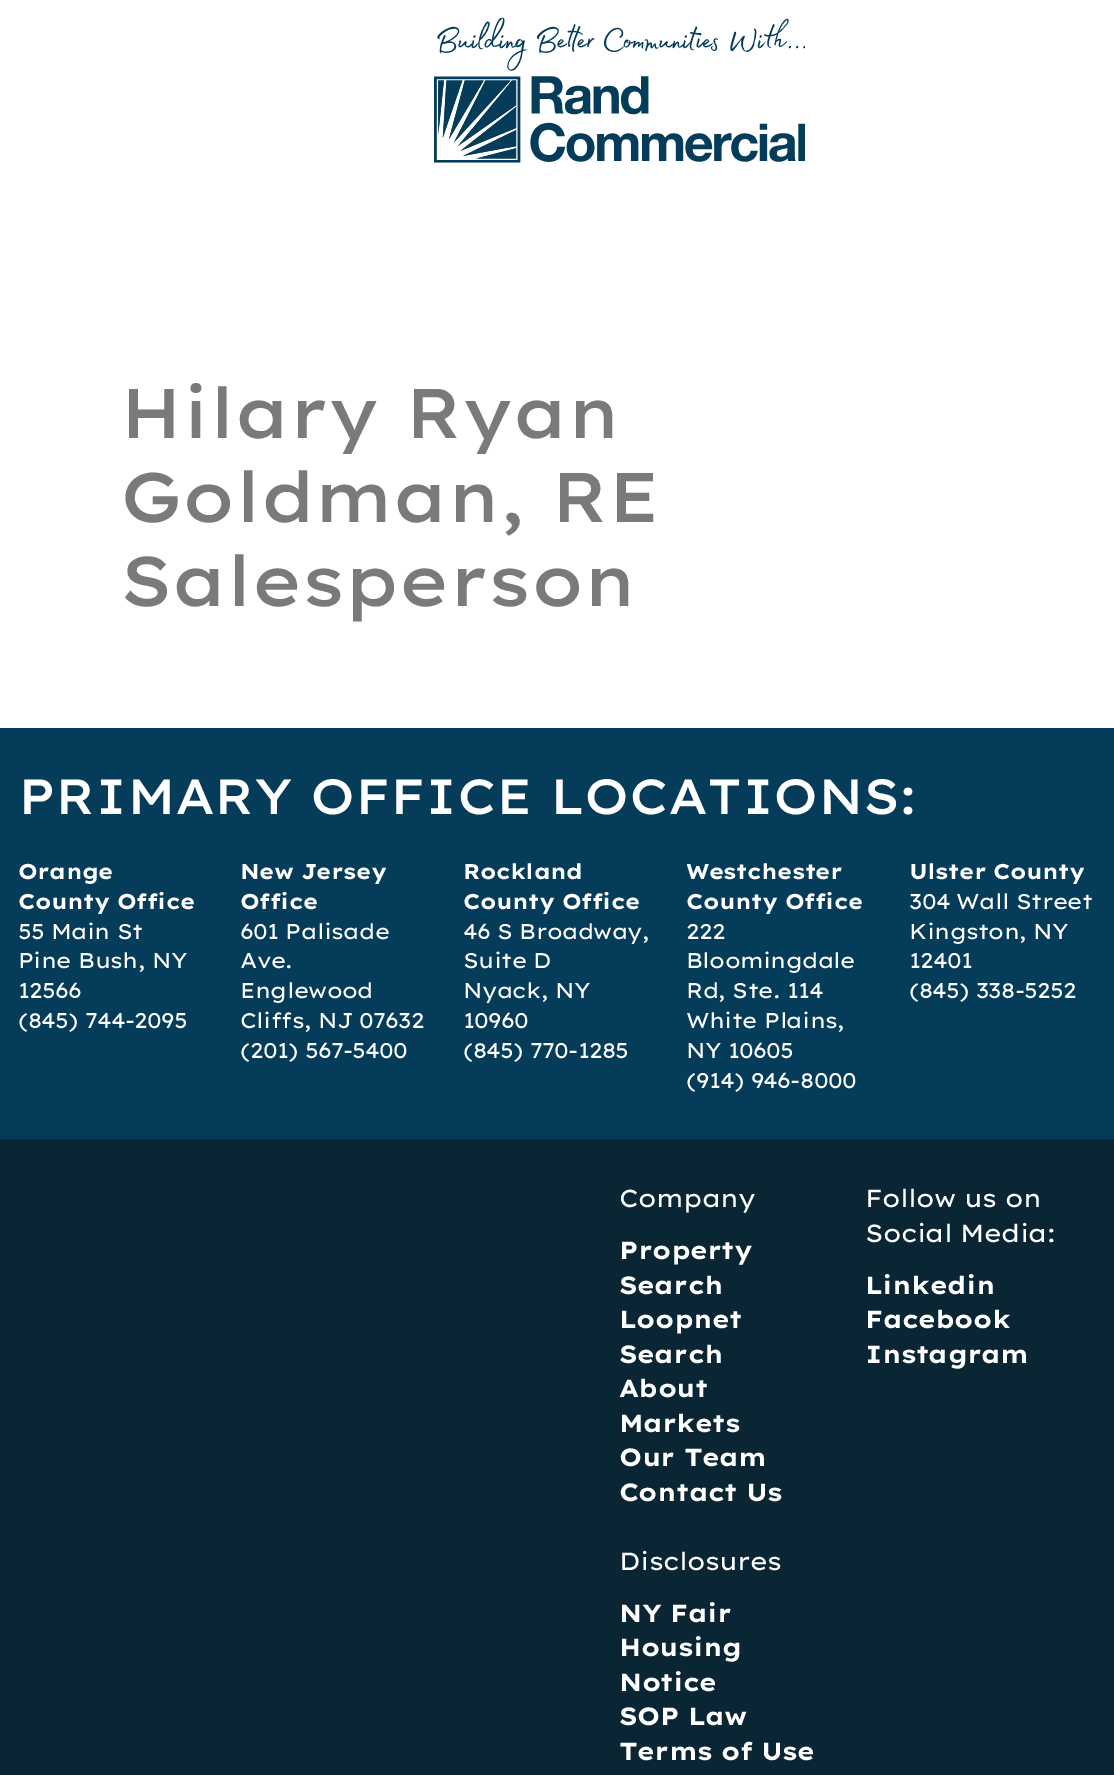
%!PS
<< /PageSize [1114 1775] >> setpagedevice
/rgb { dup -16 bitshift 255 div exch dup -8 bitshift 255 and 255 div exch 255 and 255 div setrgbcolor } def
/font { [ exch dup neg 0 0 3 -1 roll 0 0 ] selectfont } def
/picture { 5 dict begin { /h /w /y /x /name } { exch def } forall
  gsave x y translate w h scale
  w h 8 [w 0 0 h 0 0] name (r) file false 3 colorimage grestore end } def
0 1775 translate 1 -1 scale
4 setmiterlimit
16#FFFFFF rgb
0 0 1114 1775 rectfill
(pic1.raw) 434 17 371 146 picture
/LexendExa-Medium 70 font
16#7A7A7A rgb
120 438 moveto -0.7 0 (Hilary Ryan) ashow
120 522 moveto -0.7 0 (Goldman, RE) ashow
120 606 moveto -0.7 0 (Salesperson) ashow
16#053C5A rgb
0 728 1114 411 rectfill
/LexendExa-Medium 49.25 font
16#FFFFFF rgb
18 814 moveto -0.7 0 (PRIMARY OFFICE LOCATIONS:) ashow
/LexendExa-Bold 21.25 font
18 879 moveto -0.7 0 (Orange) ashow
18 909 moveto -0.7 0 (County Office) ashow
/LexendExa-Regular 21.25 font
18 939 moveto -0.7 0 (55 Main St) ashow
18 968 moveto -0.7 0 (Pine Bush, NY) ashow
18 998 moveto -0.7 0 (12566) ashow
18 1028 moveto -0.7 0 (\(845\) 744-2095) ashow
/LexendExa-Bold 21.25 font
240 879 moveto -0.7 0 (New Jersey) ashow
240 909 moveto -0.7 0 (Office) ashow
/LexendExa-Regular 21.25 font
240 939 moveto -0.7 0 (601 Palisade) ashow
240 968 moveto -0.7 0 (Ave.) ashow
240 998 moveto -0.7 0 (Englewood) ashow
240 1028 moveto -0.7 0 (Cliffs, NJ 07632) ashow
240 1058 moveto -0.7 0 (\(201\) 567-5400) ashow
/LexendExa-Bold 21.25 font
463 879 moveto -0.7 0 (Rockland) ashow
463 909 moveto -0.7 0 (County Office) ashow
/LexendExa-Regular 21.25 font
463 939 moveto -0.7 0 (46 S Broadway,) ashow
463 968 moveto -0.7 0 (Suite D) ashow
463 998 moveto -0.7 0 (Nyack, NY) ashow
463 1028 moveto -0.7 0 (10960) ashow
463 1058 moveto -0.7 0 (\(845\) 770-1285) ashow
/LexendExa-Bold 21.25 font
686 879 moveto -0.7 0 (Westchester) ashow
686 909 moveto -0.7 0 (County Office) ashow
/LexendExa-Regular 21.25 font
686 939 moveto -0.7 0 (222) ashow
686 968 moveto -0.7 0 (Bloomingdale) ashow
686 998 moveto -0.7 0 (Rd, Ste. 114) ashow
686 1028 moveto -0.7 0 (White Plains,) ashow
686 1058 moveto -0.7 0 (NY 10605) ashow
686 1088 moveto -0.7 0 (\(914\) 946-8000) ashow
/LexendExa-Bold 21.25 font
909 879 moveto -0.7 0 (Ulster County) ashow
/LexendExa-Regular 21.25 font
909 909 moveto -0.7 0 (304 Wall Street) ashow
909 939 moveto -0.7 0 (Kingston, NY) ashow
909 968 moveto -0.7 0 (12401) ashow
909 998 moveto -0.7 0 (\(845\) 338-5252) ashow
16#0A2534 rgb
0 1139 1114 636 rectfill
/LexendExa-Regular 24.75 font
16#FFFFFF rgb
619 1207 moveto -0.7 0 (Company) ashow
/LexendExa-Bold 24.75 font
619 1259 moveto -0.7 0 (Property) ashow
619 1294 moveto -0.7 0 (Search) ashow
619 1328 moveto -0.7 0 (Loopnet) ashow
619 1363 moveto -0.7 0 (Search) ashow
619 1397 moveto -0.7 0 (About) ashow
619 1432 moveto -0.7 0 (Markets) ashow
619 1466 moveto -0.7 0 (Our Team) ashow
619 1501 moveto -0.7 0 (Contact Us) ashow
/LexendExa-Regular 24.75 font
619 1570 moveto -0.7 0 (Disclosures) ashow
/LexendExa-Bold 24.75 font
619 1622 moveto -0.7 0 (NY Fair) ashow
619 1656 moveto -0.7 0 (Housing) ashow
619 1691 moveto -0.7 0 (Notice) ashow
619 1725 moveto -0.7 0 (SOP Law) ashow
619 1760 moveto -0.7 0 (Terms of Use) ashow
/LexendExa-Regular 24.75 font
865 1207 moveto -0.7 0 (Follow us on) ashow
865 1242 moveto -0.7 0 (Social Media:) ashow
/LexendExa-Bold 24.75 font
865 1294 moveto -0.7 0 (Linkedin) ashow
865 1328 moveto -0.7 0 (Facebook) ashow
865 1363 moveto -0.7 0 (Instagram) ashow
showpage
